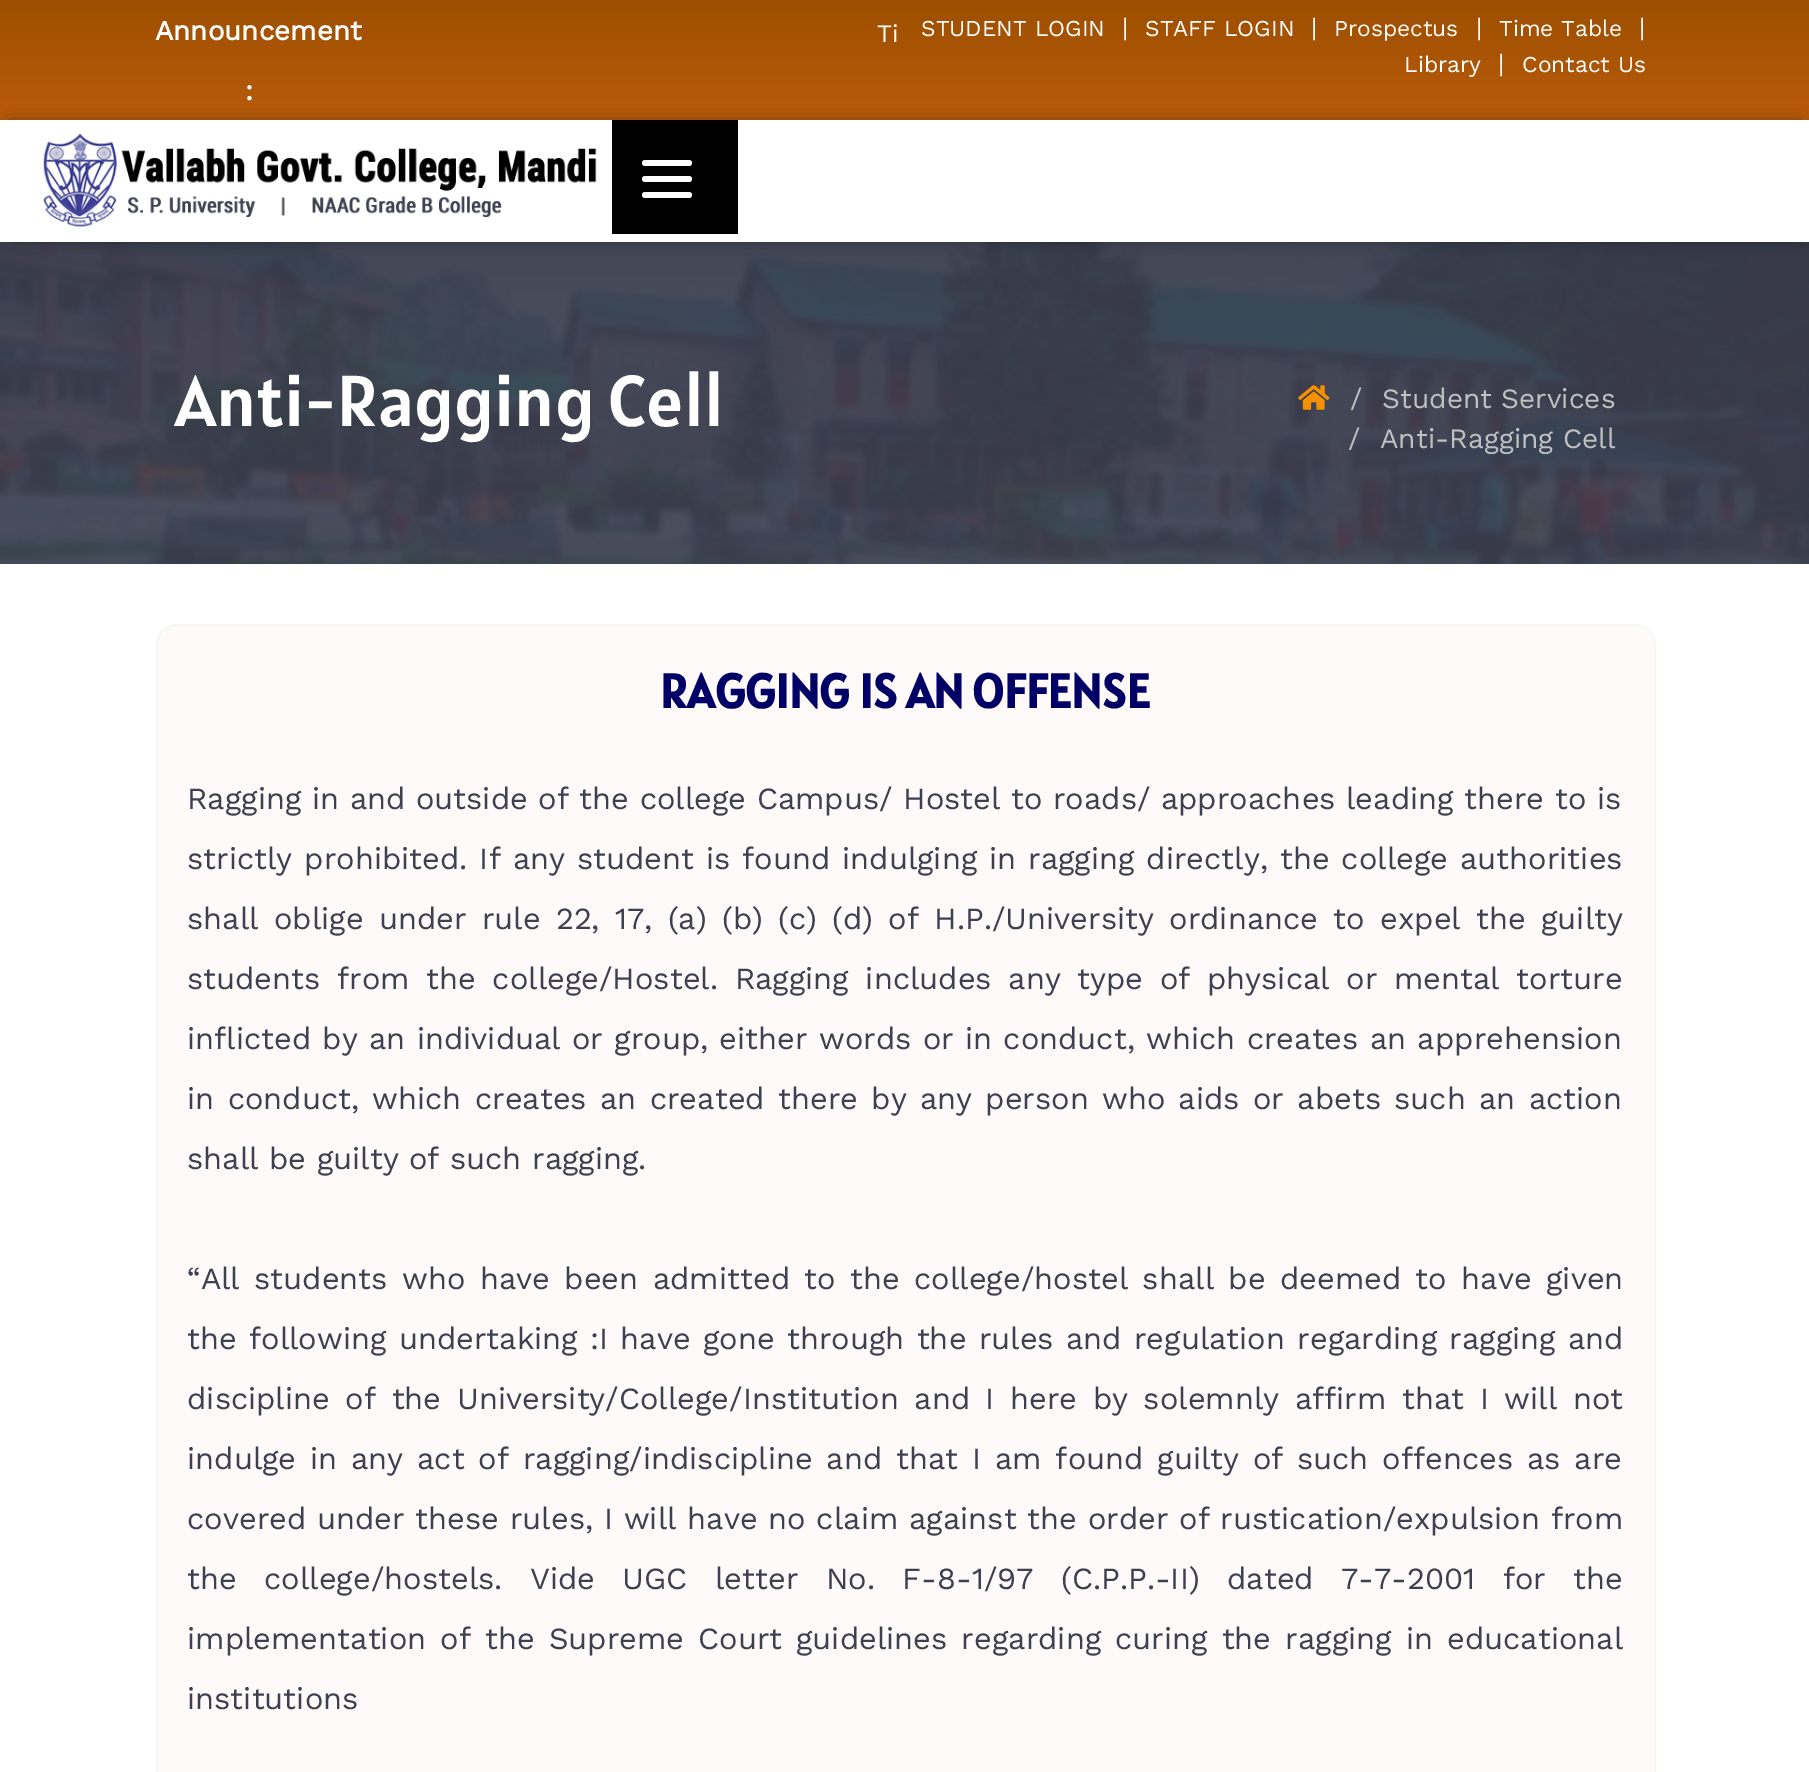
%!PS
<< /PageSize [1809 1772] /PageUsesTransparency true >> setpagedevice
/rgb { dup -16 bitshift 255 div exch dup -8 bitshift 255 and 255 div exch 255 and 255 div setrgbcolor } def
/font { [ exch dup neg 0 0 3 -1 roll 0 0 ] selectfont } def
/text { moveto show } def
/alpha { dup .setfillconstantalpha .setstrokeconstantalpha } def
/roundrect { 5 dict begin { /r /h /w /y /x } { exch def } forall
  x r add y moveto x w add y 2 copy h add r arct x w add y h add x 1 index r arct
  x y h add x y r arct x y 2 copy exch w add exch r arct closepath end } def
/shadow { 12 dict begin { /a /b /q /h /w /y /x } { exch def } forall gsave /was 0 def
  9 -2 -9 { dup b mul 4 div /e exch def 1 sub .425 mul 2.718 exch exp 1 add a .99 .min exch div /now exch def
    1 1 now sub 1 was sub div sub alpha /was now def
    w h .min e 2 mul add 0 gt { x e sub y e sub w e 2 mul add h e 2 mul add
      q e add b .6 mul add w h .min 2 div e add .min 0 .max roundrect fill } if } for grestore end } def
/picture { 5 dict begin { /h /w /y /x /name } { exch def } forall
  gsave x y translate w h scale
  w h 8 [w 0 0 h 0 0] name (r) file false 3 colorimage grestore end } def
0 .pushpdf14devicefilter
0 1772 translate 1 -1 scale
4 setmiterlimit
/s1 { /WorkSans-Bold 27.75 font 16#FFFFFF rgb } def
/s2 { /WorkSans-Regular 25 font 16#FFFFFF rgb } def
/s3 { /WorkSans-Regular 22.75 font 16#FFFFFF rgb } def
/s4 { /Alatsi-Regular 72 font 16#FFFFFF rgb } def
/s5 { /WorkSans-Regular 28 font 16#C0C0C0 rgb } def
/s6 { /Alatsi-Bold 48 font 16#000066 rgb } def
/s7 { /WorkSans-Regular 30.8 font 16#3D404F rgb } def
16#FFFFFF rgb
0 0 1809 1772 rectfill
gsave 0 0 moveto 1809 0 lineto 1809 120 lineto 0 120 lineto closepath clip newpath
<< /ShadingType 2 /ColorSpace /DeviceRGB /Coords [905 0 905 120] /Extend [true true] /Function << /FunctionType 2 /Domain [0 1] /C0 [0.616 0.31 0] /C1 [0.725 0.357 0.043] /N 1 >> >> shfill grestore
s1
(Announcement) 155 40 text
(:) 245 100 text
s2
(Ti) 877 42 text
s3
(STUDENT LOGIN) 921 36 text
s2
(|) 1122 36 text
s3
(STAFF LOGIN) 1145 36 text
s2
(|) 1311 36 text
s3
(Prospectus) 1334 36 text
s2
(|) 1476 36 text
s3
(Time Table) 1499 36 text
s2
(|) 1639 36 text
s3
(Library) 1404 72 text
s2
(|) 1498 72 text
s3
(Contact Us) 1522 72 text
(pic2.raw) 0 242 1809 322 picture
gsave
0 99 moveto 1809 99 lineto 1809 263 lineto 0 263 lineto closepath 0 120 moveto 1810 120 lineto 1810 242 lineto 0 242 lineto closepath eoclip newpath
16#000000 rgb
10 130 1790 102 0 10 1 shadow
grestore
(pic1.raw) 43 133 554 94 picture
16#000000 rgb
612 120 126 114 rectfill
16#FFFFFF rgb
642 160 50 6 3 roundrect fill
642 176 50 6 3 roundrect fill
642 192 50 6 3 roundrect fill
s4
(Anti-Ragging Cell) 175 426 text
(pic3.raw) 1298 385 32 25 picture
s5
(/) 1350 408 text
(Student Services) 1382 408 text
(/) 1348 448 text
(Anti-Ragging Cell) 1380 448 text
16#FFFAFA rgb
157 625 1498 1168 19 roundrect gsave fill grestore
16#F7F7F7 rgb
2 setlinewidth
stroke
s6
(RAGGING IS AN OFFENSE) 660 708 text
s7
(Ragging in and outside of the college Campus/ Hostel to roads/ approaches leading there to is) 187 809 text
187 869 moveto 1.4 0 32 (strictly prohibited. If any student is found indulging in ragging directly, the college authorities) widthshow
187 929 moveto 4.75 0 32 (shall oblige under rule 22, 17, \(a\) \(b\) \(c\) \(d\) of H.P./University ordinance to expel the guilty) widthshow
187 989 moveto 6.1 0 32 (students from the college/Hostel. Ragging includes any type of physical or mental torture) widthshow
187 1049 moveto 0.75 0 32 (inflicted by an individual or group, either words or in conduct, which creates an apprehension) widthshow
187 1109 moveto 2.75 0 32 (in conduct, which creates an created there by any person who aids or abets such an action) widthshow
(shall be guilty of such ragging.) 187 1169 text
187 1289 moveto 3.9 0 32 (“All students who have been admitted to the college/hostel shall be deemed to have given) widthshow
187 1349 moveto 1.75 0 32 (the following undertaking :I have gone through the rules and regulation regarding ragging and) widthshow
187 1409 moveto 5 0 32 (discipline of the University/College/Institution and I here by solemnly affirm that I will not) widthshow
187 1469 moveto 3.25 0 32 (indulge in any act of ragging/indiscipline and that I am found guilty of such offences as are) widthshow
187 1529 moveto 0.25 0 32 (covered under these rules, I will have no claim against the order of rustication/expulsion from) widthshow
187 1589 moveto 16.9 0 32 (the college/hostels. Vide UGC letter No. F-8-1/97 \(C.P.P.-II\) dated 7-7-2001 for the) widthshow
187 1649 moveto 3.5 0 32 (implementation of the Supreme Court guidelines regarding curing the ragging in educational) widthshow
(institutions) 187 1709 text
.poppdf14devicefilter showpage
